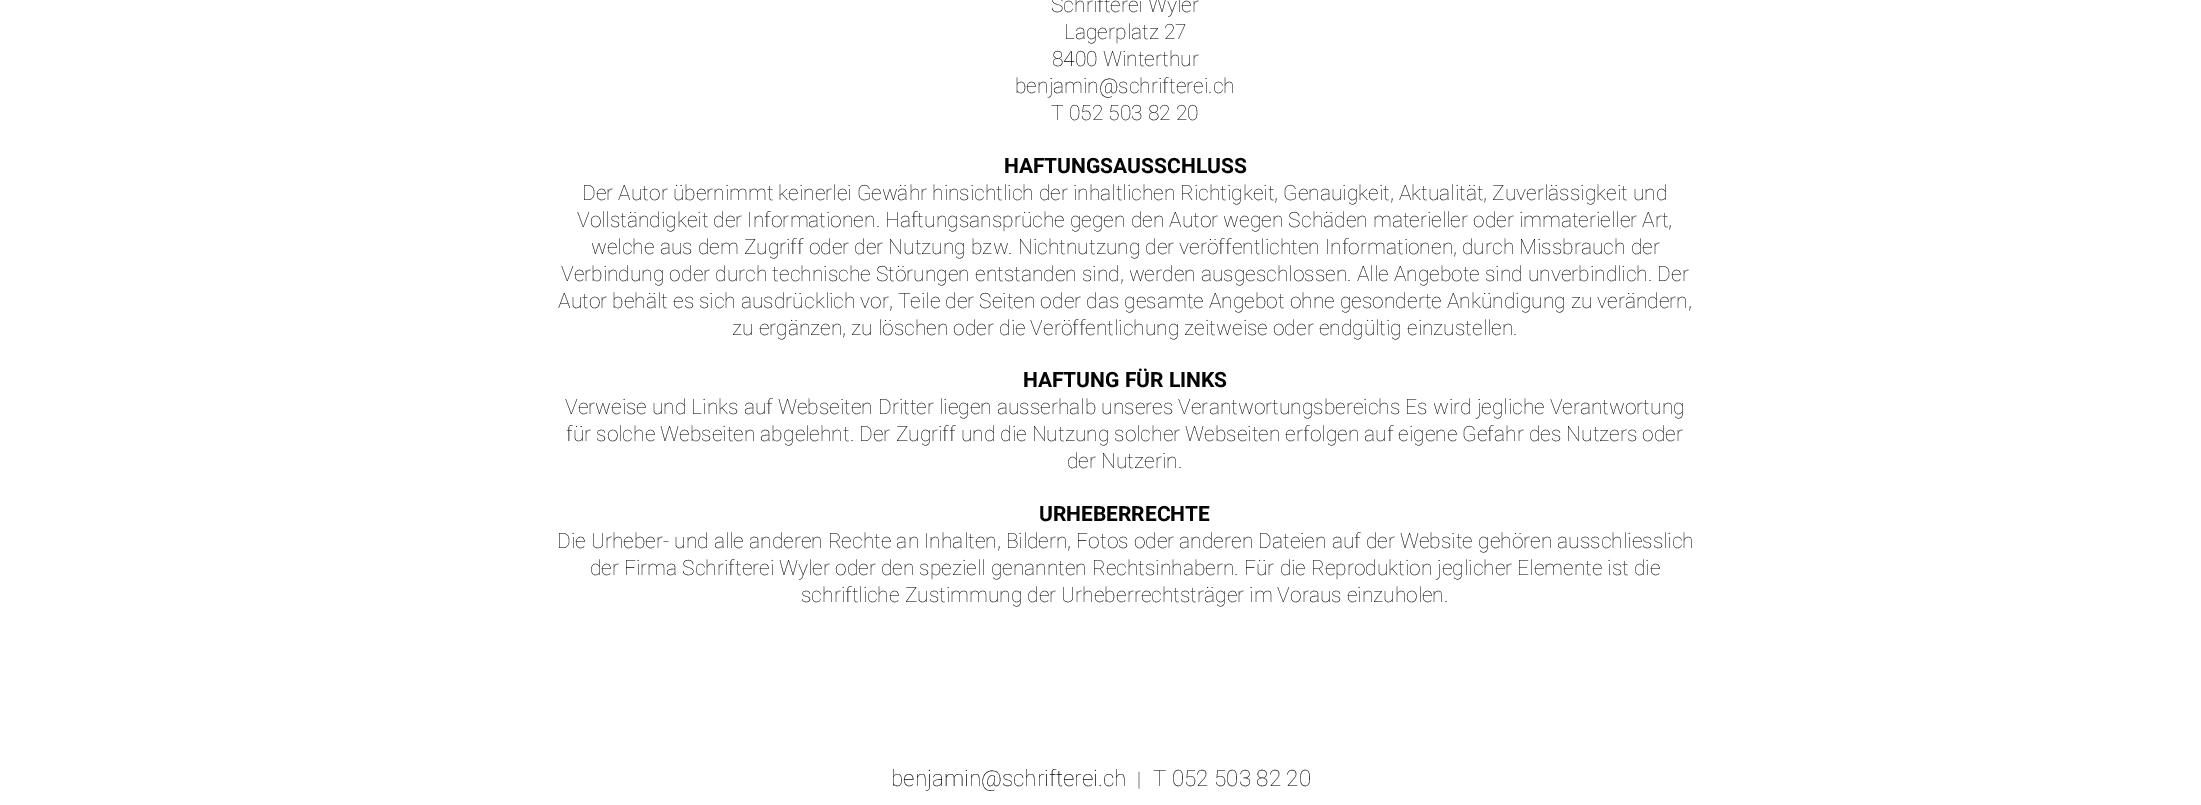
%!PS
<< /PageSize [2201 805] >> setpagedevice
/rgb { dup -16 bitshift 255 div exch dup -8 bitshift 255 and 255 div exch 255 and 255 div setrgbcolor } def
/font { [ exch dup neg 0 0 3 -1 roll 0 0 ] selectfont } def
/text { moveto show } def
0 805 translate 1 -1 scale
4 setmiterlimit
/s1 { /Roboto-Thin 21 font 16#050505 rgb } def
/s2 { /Roboto-Bold 21 font 16#050505 rgb } def
/s3 { /Roboto-Thin 22.5 font 16#050505 rgb } def
16#FFFFFF rgb
0 0 2201 805 rectfill
s1
(Schrifterei Wyler) 1051 12 text
(Lagerplatz 27) 1064 39 text
(8400 Winterthur) 1052 66 text
(benjamin@schrifterei.ch) 1015 93 text
(T 052 503 82 20) 1051 120 text
s2
(HAFTUNGSAUSSCHLUSS) 1004 173 text
s1
(Der Autor übernimmt keinerlei Gewähr hinsichtlich der inhaltlichen Richtigkeit, Genauigkeit, Aktualität, Zuverlässigkeit und) 582 200 text
(Vollständigkeit der Informationen. Haftungsansprüche gegen den Autor wegen Schäden materieller oder immaterieller Art,) 577 227 text
(welche aus dem Zugriff oder der Nutzung bzw. Nichtnutzung der veröffentlichten Informationen, durch Missbrauch der) 591 254 text
(Verbindung oder durch technische Störungen entstanden sind, werden ausgeschlossen. Alle Angebote sind unverbindlich. Der) 561 281 text
(Autor behält es sich ausdrücklich vor, Teile der Seiten oder das gesamte Angebot ohne gesonderte Ankündigung zu verändern,) 558 308 text
(zu ergänzen, zu löschen oder die Veröffentlichung zeitweise oder endgültig einzustellen.) 732 335 text
s2
(HAFTUNG FÜR LINKS) 1023 387 text
s1
(Verweise und Links auf Webseiten Dritter liegen ausserhalb unseres Verantwortungsbereichs Es wird jegliche Verantwortung) 565 414 text
(für solche Webseiten abgelehnt. Der Zugriff und die Nutzung solcher Webseiten erfolgen auf eigene Gefahr des Nutzers oder) 566 441 text
(der Nutzerin.) 1067 468 text
s2
(URHEBERRECHTE) 1039 521 text
s1
(Die Urheber- und alle anderen Rechte an Inhalten, Bildern, Fotos oder anderen Dateien auf der Website gehören ausschliesslich) 557 548 text
(der Firma Schrifterei Wyler oder den speziell genannten Rechtsinhabern. Für die Reproduktion jeglicher Elemente ist die) 590 575 text
(schriftliche Zustimmung der Urheberrechtsträger im Voraus einzuholen.) 801 602 text
s3
(benjamin@schrifterei.ch) 891 786 text
/Roboto-Thin 20 font
1137 786 moveto 1 0 (|) ashow
s3
(T 052 503 82 20) 1153 786 text
showpage
